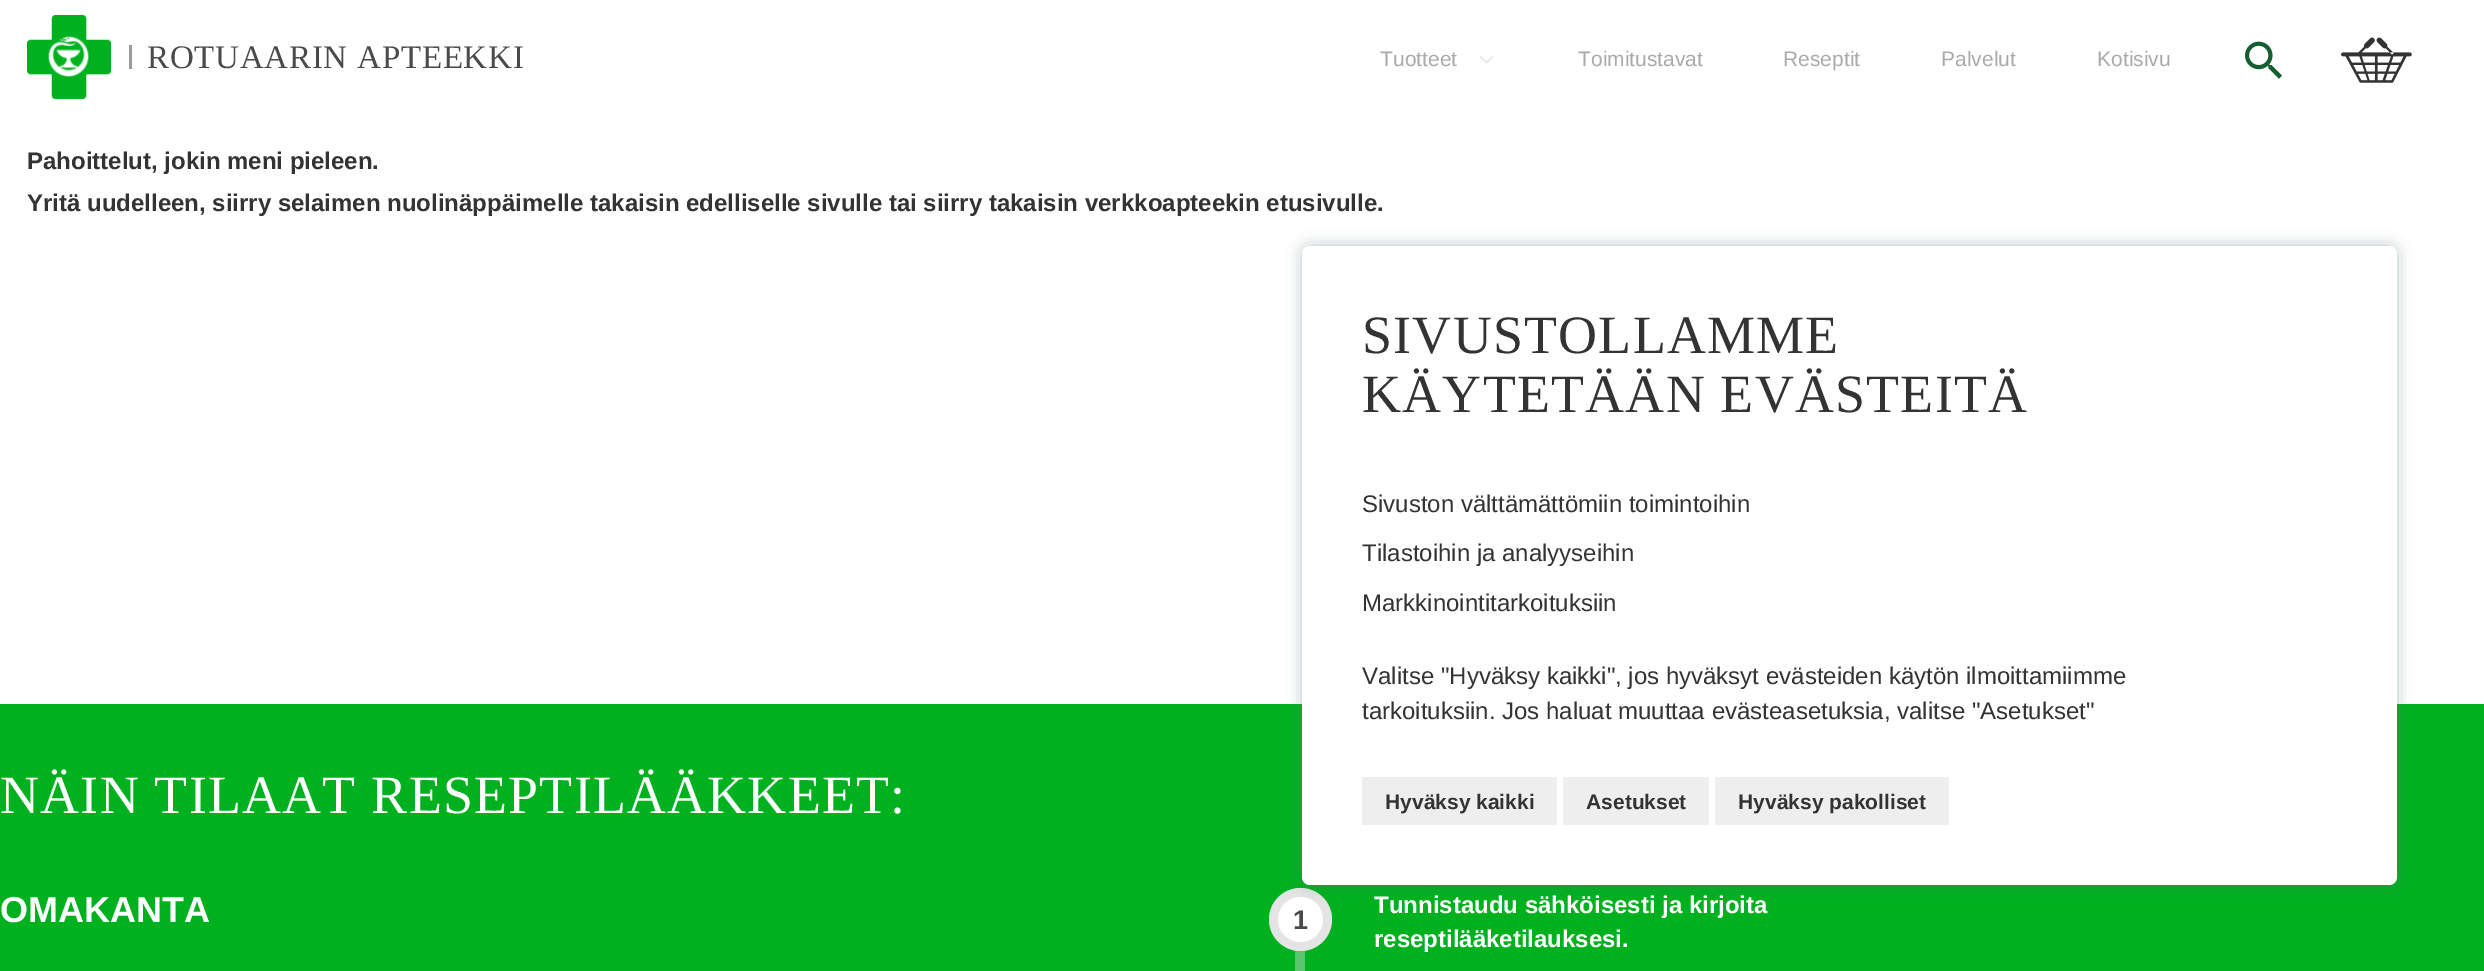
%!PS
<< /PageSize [2484 971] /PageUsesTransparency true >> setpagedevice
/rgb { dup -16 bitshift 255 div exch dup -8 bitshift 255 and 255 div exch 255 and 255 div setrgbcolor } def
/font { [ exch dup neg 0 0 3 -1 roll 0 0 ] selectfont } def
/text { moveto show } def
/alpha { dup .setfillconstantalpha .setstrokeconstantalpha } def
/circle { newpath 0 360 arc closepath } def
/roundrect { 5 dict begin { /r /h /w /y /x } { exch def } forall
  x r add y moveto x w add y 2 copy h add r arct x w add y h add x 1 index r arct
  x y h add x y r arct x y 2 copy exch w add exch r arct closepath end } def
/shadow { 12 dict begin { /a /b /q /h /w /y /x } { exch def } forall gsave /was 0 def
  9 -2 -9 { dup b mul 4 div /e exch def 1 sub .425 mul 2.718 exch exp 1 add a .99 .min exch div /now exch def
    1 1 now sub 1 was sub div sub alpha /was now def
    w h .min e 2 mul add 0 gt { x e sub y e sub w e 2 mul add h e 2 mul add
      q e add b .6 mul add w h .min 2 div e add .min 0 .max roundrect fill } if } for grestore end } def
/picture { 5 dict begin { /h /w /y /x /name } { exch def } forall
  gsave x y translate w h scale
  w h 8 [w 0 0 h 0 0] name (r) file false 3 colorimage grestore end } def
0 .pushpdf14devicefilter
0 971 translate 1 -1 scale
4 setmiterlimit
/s1 { /LiberationSans-Regular 21 font 16#AAAAAA rgb } def
/s2 { /LiberationSans-Bold 24 font 16#333333 rgb } def
/s3 { /LiberationSans-Regular 24 font 16#333333 rgb } def
/s4 { /LiberationSans-Bold 21 font 16#333333 rgb } def
/s5 { /LiberationSans-Bold 36 font 16#FFFFFF rgb } def
/s6 { /LiberationSans-Bold 24 font 16#FFFFFF rgb } def
/s7 { /LiberationSans-Bold 27 font 16#4A4A4A rgb } def
16#FFFFFF rgb
0 0 2484 971 rectfill
(pic1.raw) 27 15 84 84 picture
16#9B9B9B rgb
129 45 3 24 rectfill
/LiberationSerif-Regular 33 font
16#4A4A4A rgb
147 68 moveto 0.75 0 (ROTUAARIN APTEEKKI) ashow
s1
(Tuotteet) 1380 66 text
(pic2.raw) 1480 56 13 8 picture
(Toimitustavat) 1578 66 text
(Reseptit) 1783 66 text
(Palvelut) 1941 66 text
(Kotisivu) 2097 66 text
(pic3.raw) 2245 41 37 38 picture
(pic4.raw) 2341 37 71 46 picture
s2
(Pahoittelut, jokin meni pieleen.) 27 169 text
(Yritä uudelleen, siirry selaimen nuolinäppäimelle takaisin edelliselle sivulle tai siirry takaisin verkkoapteekin etusivulle.) 27 211 text
16#00B11F rgb
0 704 2484 267 rectfill
16#5BC56E rgb
1295 950 10 21 rectfill
16#E4E4E4 rgb
1300.5 919.5 31.5 circle fill
16#FFFFFF rgb
1300.5 919.5 22.5 circle fill
16#547478 rgb
1302 246 1095 639 8 7.5 0.4 shadow
16#FFFFFF rgb
1302 246 1095 639 8 roundrect fill
/LiberationSerif-Regular 54 font
16#333333 rgb
1362 353 moveto 1.2 0 (SIVUSTOLLAMME) ashow
1362 412 moveto 1.2 0 (KÄYTETÄÄN EVÄSTEITÄ) ashow
s3
(Sivuston välttämättömiin toimintoihin) 1362 512 text
(Tilastoihin ja analyyseihin) 1362 561 text
(Markkinointitarkoituksiin) 1362 611 text
(Valitse "Hyväksy kaikki", jos hyväksyt evästeiden käytön ilmoittamiimme) 1362 684 text
(tarkoituksiin. Jos haluat muuttaa evästeasetuksia, valitse "Asetukset") 1362 719 text
16#EEEEEE rgb
1362 777 195 48 rectfill
s4
(Hyväksy kaikki) 1385 809 text
16#EEEEEE rgb
1563 777 146 48 rectfill
s4
(Asetukset) 1586 809 text
16#EEEEEE rgb
1715 777 234 48 rectfill
s4
(Hyväksy pakolliset) 1738 809 text
/LiberationSerif-Regular 54 font
16#FFFFFF rgb
0 813 moveto 1.2 0 (NÄIN TILAAT RESEPTILÄÄKKEET:) ashow
s5
(OMAKANTA) 0 922 text
s6
(Tunnistaudu sähköisesti ja kirjoita) 1374 913 text
s7
(1) 1293 929 text
s6
(reseptilääketilauksesi.) 1374 947 text
.poppdf14devicefilter showpage
